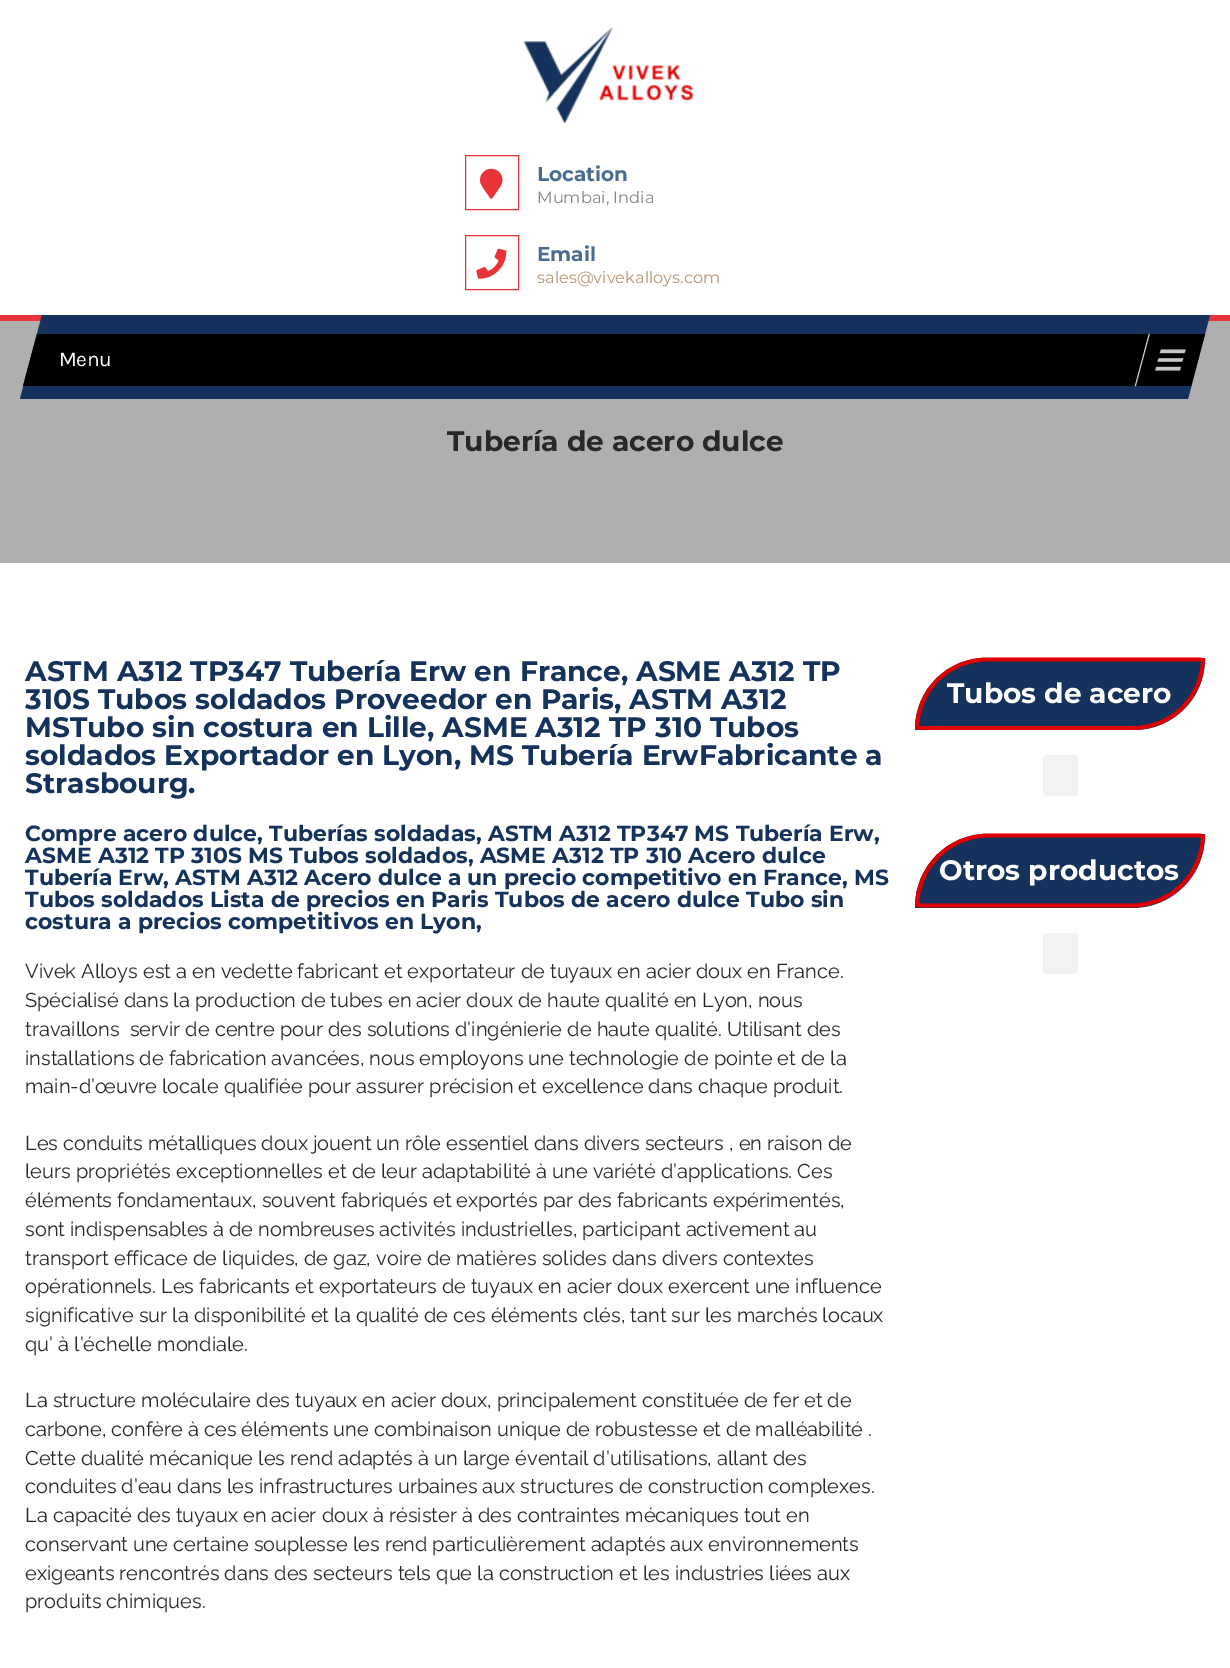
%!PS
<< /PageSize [1230 1668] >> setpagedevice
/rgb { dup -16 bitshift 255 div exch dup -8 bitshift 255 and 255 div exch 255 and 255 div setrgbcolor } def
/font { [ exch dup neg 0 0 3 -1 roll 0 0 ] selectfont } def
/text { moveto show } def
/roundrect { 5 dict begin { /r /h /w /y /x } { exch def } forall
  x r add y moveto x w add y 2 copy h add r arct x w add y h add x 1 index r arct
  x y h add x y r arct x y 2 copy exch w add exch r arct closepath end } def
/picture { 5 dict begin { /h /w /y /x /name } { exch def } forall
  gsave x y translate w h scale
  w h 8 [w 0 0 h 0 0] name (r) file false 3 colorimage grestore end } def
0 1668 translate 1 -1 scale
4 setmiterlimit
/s1 { /Montserrat-Bold 20 font 16#4A6C91 rgb } def
/s2 { /Montserrat-Regular 16.25 font 16#878787 rgb } def
/s3 { /Montserrat-Regular 16.25 font 16#B59A77 rgb } def
/s4 { /Montserrat-Bold 28.1 font 16#282828 rgb } def
/s5 { /Montserrat-Bold 28.1 font 16#14325B rgb } def
/s6 { /Montserrat-Bold 21.95 font 16#14325B rgb } def
/s7 { /Raleway-Regular 20 font 16#282828 rgb } def
/s8 { /Montserrat-Bold 28.1 font 16#FFFFFF rgb } def
16#FFFFFF rgb
0 0 1230 1668 rectfill
16#E83339 rgb
0 315 1230 6 rectfill
(pic1.raw) 523 27 171 96 picture
465.5 155.5 53 54 rectstroke
(pic2.raw) 480 168 23 31 picture
s1
(Location) 537 181 text
s2
(Mumbai, India) 537 203 text
16#E83339 rgb
465.5 235.5 53 54 rectstroke
(pic3.raw) 476 248 31 31 picture
s1
(Email) 537 261 text
s3
(sales@vivekalloys.com) 537 283 text
16#AFAFAF rgb
0 321 1230 242 rectfill
16#14325B rgb
42 315 moveto 1210 315 lineto 1188 399 lineto 20 399 lineto closepath fill
16#000000 rgb
37 334 moveto 1205 334 lineto 1191 386 lineto 23 386 lineto closepath fill
(pic4.raw) 1134 333 52 54 picture
/Karla-Regular 21 font
16#FFFFFF rgb
59 366 moveto -0.5 0 (Menu) ashow
s4
(Tubería de acero dulce) 447 451 text
s5
(ASTM A312 TP347 Tubería Erw en France, ASME A312 TP) 25 681 text
(310S Tubos soldados Proveedor en Paris, ASTM A312) 25 709 text
(MSTubo sin costura en Lille, ASME A312 TP 310 Tubos) 25 737 text
(soldados Exportador en Lyon, MS Tubería ErwFabricante a) 25 765 text
(Strasbourg.) 25 793 text
s6
(Compre acero dulce, Tuberías soldadas, ASTM A312 TP347 MS Tubería Erw,) 25 841 text
(ASME A312 TP 310S MS Tubos soldados, ASME A312 TP 310 Acero dulce) 25 863 text
(Tubería Erw, ASTM A312) 25 885 text
(Acero dulce a un precio competitivo en France, MS) 304 885 text
(Tubos soldados Lista de precios en Paris Tubos de acero dulce Tubo sin) 25 907 text
(costura a precios competitivos en Lyon,) 25 929 text
s7
(Vivek Alloys est a en vedette fabricant et exportateur de tuyaux en acier doux en France.) 25 978 text
(Spécialisé dans la production de tubes en acier doux de haute qualité en Lyon, nous) 25 1007 text
(travaillons  servir de centre pour des solutions d’ingénierie de haute qualité. Utilisant des) 25 1036 text
(installations de fabrication avancées, nous employons une technologie de pointe et de la) 25 1065 text
(main-d’œuvre locale qualifiée pour assurer précision et excellence dans chaque produit.) 25 1093 text
(Les conduits métalliques doux jouent un rôle essentiel dans divers secteurs , en raison de) 25 1150 text
(leurs propriétés exceptionnelles et de leur adaptabilité à une variété d’applications. Ces) 25 1178 text
(éléments fondamentaux, souvent fabriqués et exportés par des fabricants expérimentés,) 25 1207 text
(sont indispensables à de nombreuses activités industrielles, participant activement au) 25 1236 text
(transport efficace de liquides, de gaz, voire de matières solides dans divers contextes) 25 1265 text
(opérationnels. Les fabricants et exportateurs de tuyaux en acier doux exercent une influence) 25 1293 text
(significative sur la disponibilité et la qualité de ces éléments clés, tant sur les marchés locaux) 25 1322 text
(qu’ à l’échelle mondiale.) 25 1351 text
(La structure moléculaire des tuyaux en acier doux, principalement constituée de fer et de) 25 1407 text
(carbone, confère à ces éléments une combinaison unique de robustesse et de malléabilité .) 25 1436 text
(Cette dualité mécanique les rend adaptés à un large éventail d’utilisations, allant des) 25 1465 text
(conduites d’eau dans les infrastructures urbaines aux structures de construction complexes.) 25 1493 text
(La capacité des tuyaux en acier doux à résister à des contraintes mécaniques tout en) 25 1522 text
(conservant une certaine souplesse les rend particulièrement adaptés aux environnements) 25 1551 text
(exigeants rencontrés dans des secteurs tels que la construction et les industries liées aux) 25 1580 text
(produits chimiques.) 25 1608 text
16#14325B rgb
986 658 moveto 1204.5 658 lineto 1205 658 1205 658 1205 658.5 curveto 1205 659 lineto 1205 698 1173 730 1134 730 curveto 915.5 730 lineto 915 730 915 730 915 729.5 curveto 915 729 lineto 915 690 947 658 986 658 curveto closepath fill
16#DF0000 rgb
3.8 setlinewidth
987 659.5 moveto 1203 659.5 lineto 1203 658 lineto 1203 697 1172 728 1133 728 curveto 917 728 lineto 917 729.5 lineto 917 690.5 948 659.5 987 659.5 curveto closepath stroke
s8
(Tubos de acero) 947 703 text
16#F2F2F2 rgb
1043 755 35 41 4 roundrect fill
16#14325B rgb
988 834 moveto 1204.5 834 lineto 1205 834 1205 834 1205 834.5 curveto 1205 835 lineto 1205 875.5 1172.5 908 1132 908 curveto 915.5 908 lineto 915 908 915 908 915 907.5 curveto 915 907 lineto 915 866.5 947.5 834 988 834 curveto closepath fill
16#DF0000 rgb
988 835.5 moveto 1203 835.5 lineto 1203 834.5 lineto 1203 874 1171.5 905.5 1132 905.5 curveto 917 905.5 lineto 917 907 lineto 917 867.5 948.5 835.5 988 835.5 curveto closepath stroke
s8
(Otros productos) 939 880 text
16#F2F2F2 rgb
1043 933 35 41 4 roundrect fill
showpage
